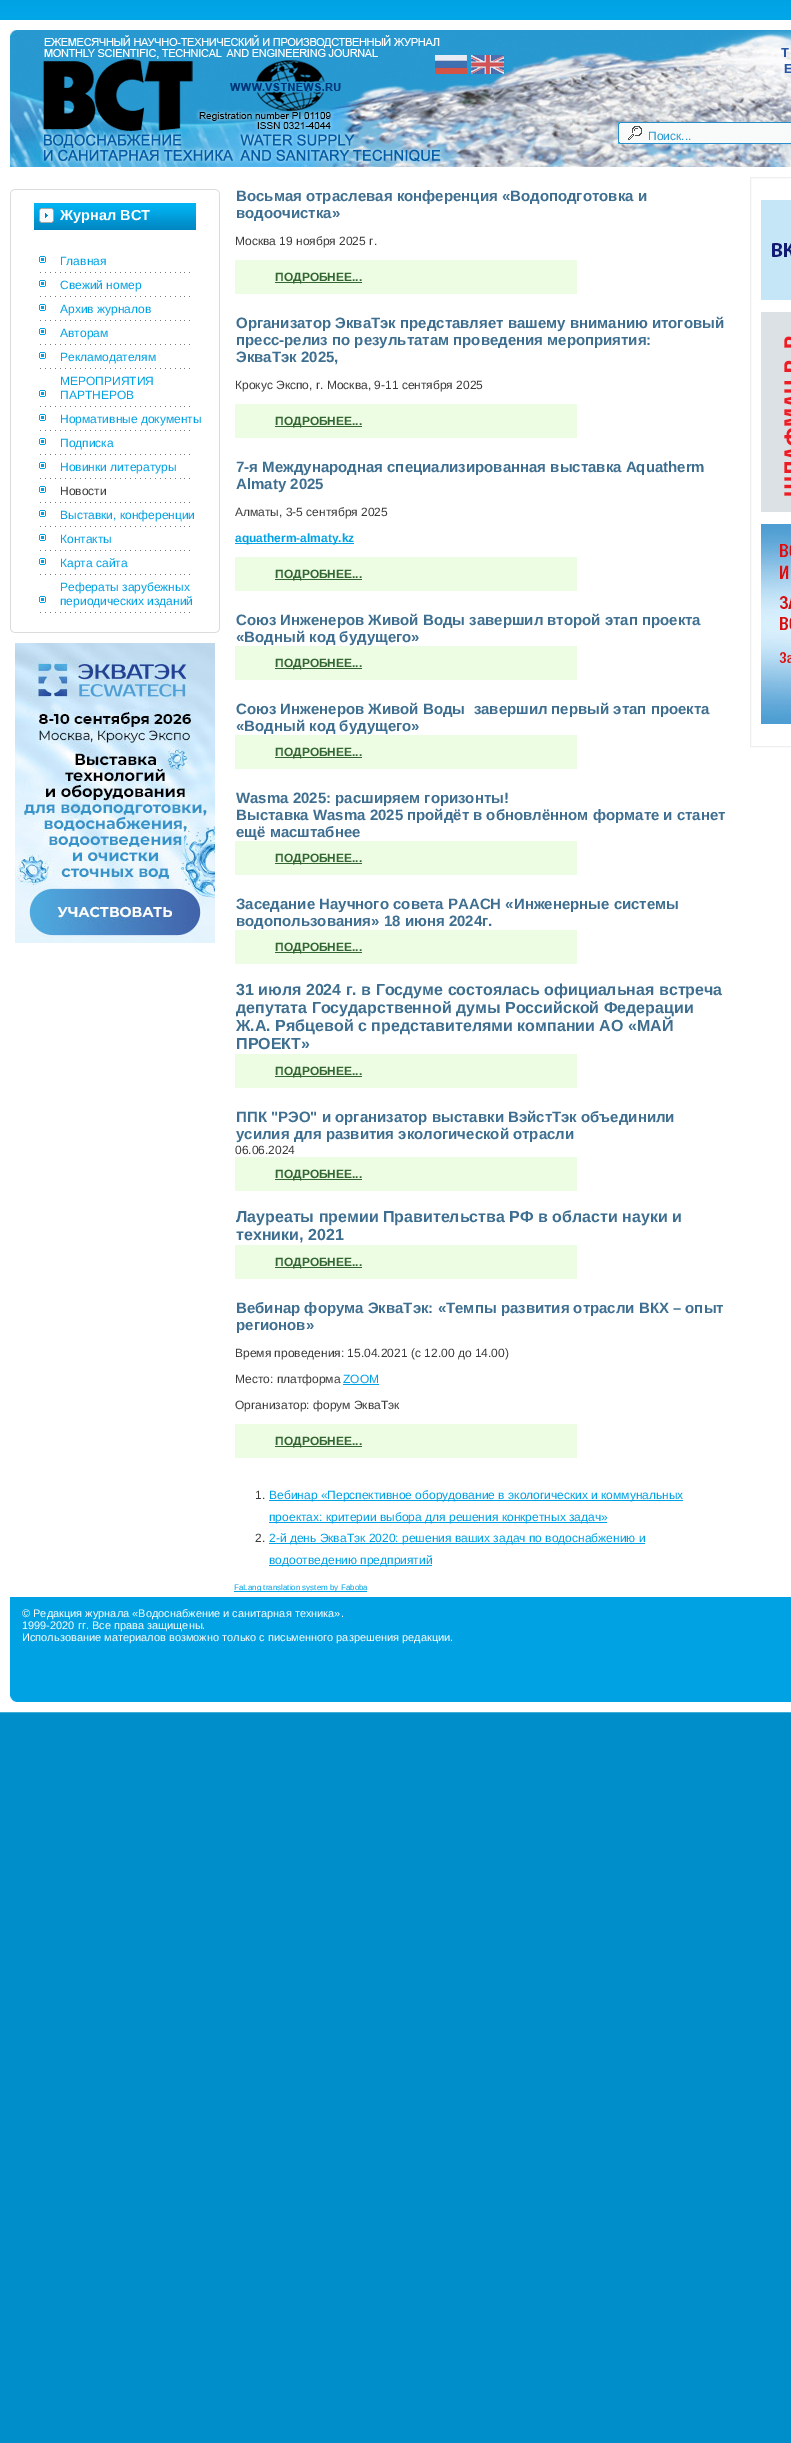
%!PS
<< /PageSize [791 2443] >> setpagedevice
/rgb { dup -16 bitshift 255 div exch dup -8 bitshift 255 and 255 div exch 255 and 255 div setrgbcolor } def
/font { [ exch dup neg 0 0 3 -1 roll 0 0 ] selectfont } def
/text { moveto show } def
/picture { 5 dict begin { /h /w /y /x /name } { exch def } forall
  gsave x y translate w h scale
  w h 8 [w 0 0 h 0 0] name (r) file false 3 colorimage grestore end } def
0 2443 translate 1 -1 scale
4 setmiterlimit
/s1 { /LiberationSans-Bold 13 font 16#2955A5 rgb } def
/s2 { /LiberationSans-Regular 12 font 16#2798D0 rgb } def
/s3 { /LiberationSans-Bold 14.5 font 16#FFFFFF rgb } def
/s4 { /LiberationSans-Regular 12 font 16#00A2E3 rgb } def
/s5 { /LiberationSans-Regular 12 font 16#3D3C3C rgb } def
/s6 { /LiberationSans-Bold 15 font 16#3E6F90 rgb } def
/s7 { /LiberationSans-Bold 12 font 16#336633 rgb } def
/s8 { /LiberationSans-Bold 12 font 16#00A2E3 rgb } def
/s9 { /LiberationSans-Bold 16 font 16#3E6F90 rgb } def
/s10 { /LiberationSans-Regular 8 font 16#00A2E3 rgb } def
/s11 { /LiberationSans-Regular 11 font 16#FFFFFF rgb } def
16#008ECA rgb
0 0 791 2443 rectfill
(pic1.raw) 0 0 791 20 picture
16#FFFFFF rgb
10 setlinewidth
5 25 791 1682 rectstroke
(pic2.raw) 10 30 781 137 picture
(pic3.raw) 40 35 402 129 picture
(pic4.raw) 435 55 32 19 picture
(pic5.raw) 471 55 33 19 picture
16#00A2E3 rgb
468 75 3 1 rectfill
s1
(Т) 781 57 text
(E) 784 73 text
(pic6.raw) 618 122 173 22 picture
s2
(Поиск...) 648 140 text
16#FFFFFF rgb
10 167 781 1430 rectfill
(pic7.raw) 14 249 206 384 picture
(pic8.raw) 10 249 4 384 picture
(pic9.raw) 14 189 206 60 picture
(pic10.raw) 10 189 4 60 picture
(pic11.raw) 34 203 162 27 picture
s3
(Журнал ВСТ) 60 220 text
(pic12.raw) 39 256 151 17 picture
s4
(Главная) 60 265 text
(pic12.raw) 39 280 151 17 picture
(Свежий номер) 60 289 text
(pic12.raw) 39 304 151 17 picture
(Архив журналов) 60 313 text
(pic12.raw) 39 328 151 17 picture
(Авторам) 60 337 text
(pic12.raw) 39 352 151 17 picture
(Рекламодателям) 60 361 text
(pic12.raw) 39 390 151 17 picture
(МЕРОПРИЯТИЯ) 60 385 text
(ПАРТНЕРОВ) 60 399 text
(pic12.raw) 39 414 151 17 picture
(Нормативные документы) 60 423 text
(pic12.raw) 39 438 151 17 picture
(Подписка) 60 447 text
(pic12.raw) 39 462 151 17 picture
(Новинки литературы) 60 471 text
(pic12.raw) 39 486 151 17 picture
s5
(Новости) 60 495 text
(pic12.raw) 39 510 151 17 picture
s4
(Выставки, конференции) 60 519 text
(pic12.raw) 39 534 151 17 picture
(Контакты) 60 543 text
(pic12.raw) 39 558 151 17 picture
(Карта сайта) 60 567 text
(pic12.raw) 39 596 151 17 picture
(Рефераты зарубежных) 60 591 text
(периодических изданий) 60 605 text
(pic13.raw) 15 643 200 300 picture
s6
(Восьмая отраслевая конференция «Водоподготовка и) 236 201 text
(водоочистка») 236 218 text
s5
(Москва 19 ноября 2025 г.) 235 245 text
16#EDFDE3 rgb
235 260 342 34 rectfill
16#336633 rgb
275 282 87 1 rectfill
s7
(ПОДРОБНЕЕ...) 275 281 text
s6
(Организатор ЭкваТэк представляет вашему вниманию итоговый) 236 328 text
(пресс-релиз по результатам проведения мероприятия:) 236 345 text
(ЭкваТэк 2025,) 236 362 text
s5
(Крокус Экспо, г. Москва, 9-11 сентября 2025) 235 389 text
16#EDFDE3 rgb
235 404 342 34 rectfill
16#336633 rgb
275 426 87 1 rectfill
s7
(ПОДРОБНЕЕ...) 275 425 text
s6
(7-я Международная специализированная выставка Aquatherm) 236 472 text
(Almaty 2025) 236 489 text
s5
(Алматы, 3-5 сентября 2025) 235 516 text
16#00A2E3 rgb
235 543 119 1 rectfill
s8
(aquatherm-almaty.kz) 235 542 text
16#EDFDE3 rgb
235 557 342 34 rectfill
16#336633 rgb
275 579 87 1 rectfill
(ПОДРОБНЕЕ...) 275 578 text
s6
(Союз Инженеров Живой Воды завершил второй этап проекта) 236 625 text
(«Водный код будущего») 236 642 text
16#EDFDE3 rgb
235 646 342 34 rectfill
16#336633 rgb
275 668 87 1 rectfill
s7
(ПОДРОБНЕЕ...) 275 667 text
s6
(Союз Инженеров Живой Воды  завершил первый этап проекта) 236 714 text
(«Водный код будущего») 236 731 text
16#EDFDE3 rgb
235 735 342 34 rectfill
16#336633 rgb
275 757 87 1 rectfill
s7
(ПОДРОБНЕЕ...) 275 756 text
s6
(Wasma 2025: расширяем горизонты!) 236 803 text
(Выставка Wasma 2025 пройдёт в обновлённом формате и станет) 236 820 text
(ещё масштабнее) 236 837 text
16#EDFDE3 rgb
235 841 342 34 rectfill
16#336633 rgb
275 863 87 1 rectfill
s7
(ПОДРОБНЕЕ...) 275 862 text
s6
(Заседание Научного совета РААСН «Инженерные системы) 236 909 text
(водопользования» 18 июня 2024г.) 236 926 text
16#EDFDE3 rgb
235 930 342 34 rectfill
16#336633 rgb
275 952 87 1 rectfill
s7
(ПОДРОБНЕЕ...) 275 951 text
s9
(31 июля 2024 г. в Госдуме состоялась официальная встреча) 236 995 text
(депутата Государственной думы Российской Федерации) 236 1013 text
(Ж.А. Рябцевой с представителями компании АО «МАЙ) 236 1031 text
(ПРОЕКТ») 236 1049 text
16#EDFDE3 rgb
235 1054 342 34 rectfill
16#336633 rgb
275 1076 87 1 rectfill
s7
(ПОДРОБНЕЕ...) 275 1075 text
s6
(ППК "РЭО" и организатор выставки ВэйстТэк объединили) 236 1122 text
(усилия для развития экологической отрасли) 236 1139 text
s5
(06.06.2024) 235 1154 text
16#EDFDE3 rgb
235 1157 342 34 rectfill
16#336633 rgb
275 1179 87 1 rectfill
s7
(ПОДРОБНЕЕ...) 275 1178 text
s9
(Лауреаты премии Правительства РФ в области науки и) 236 1222 text
(техники, 2021) 236 1240 text
16#EDFDE3 rgb
235 1245 342 34 rectfill
16#336633 rgb
275 1267 87 1 rectfill
s7
(ПОДРОБНЕЕ...) 275 1266 text
s6
(Вебинар форума ЭкваТэк: «Темпы развития отрасли ВКХ – опыт) 236 1313 text
(регионов») 236 1330 text
s5
(Время проведения: 15.04.2021 \(с 12.00 до 14.00\)) 235 1357 text
(Место: платформа) 235 1383 text
s4
(ZOOM) 343 1383 text
343 1384 36 1 rectfill
s5
(Организатор: форум ЭкваТэк) 235 1409 text
16#EDFDE3 rgb
235 1424 342 34 rectfill
16#336633 rgb
275 1446 87 1 rectfill
s7
(ПОДРОБНЕЕ...) 275 1445 text
s5
(1.) 255 1499 text
16#00A2E3 rgb
269 1500 414 1 rectfill
(Вебинар «Перспективное оборудование в экологических и коммунальных) 269 1499 text
269 1522 338 1 rectfill
(проектах: критерии выбора для решения конкретных задач») 269 1521 text
s5
(2.) 255 1542 text
16#00A2E3 rgb
269 1543 376 1 rectfill
(2-й день ЭкваТэк 2020: решения ваших задач по водоснабжению и) 269 1542 text
269 1565 163 1 rectfill
(водоотведению предприятий) 269 1564 text
234 1591 133 1 rectfill
s10
(FaLang translation system by Faboba) 234 1590 text
16#F0EFEF rgb
1 setlinewidth
750.5 177.5 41 569 rectstroke
(pic14.raw) 761 200 30 100 picture
(pic15.raw) 761 312 30 200 picture
(pic16.raw) 761 524 30 200 picture
(pic17.raw) 10 1597 781 105 picture
s11
(© Редакция журнала «Водоснабжение и санитарная техника».) 22 1617 text
(1999-2020 гг. Все права защищены.) 22 1629 text
(Использование материалов возможно только с письменного разрешения редакции.) 22 1641 text
showpage
